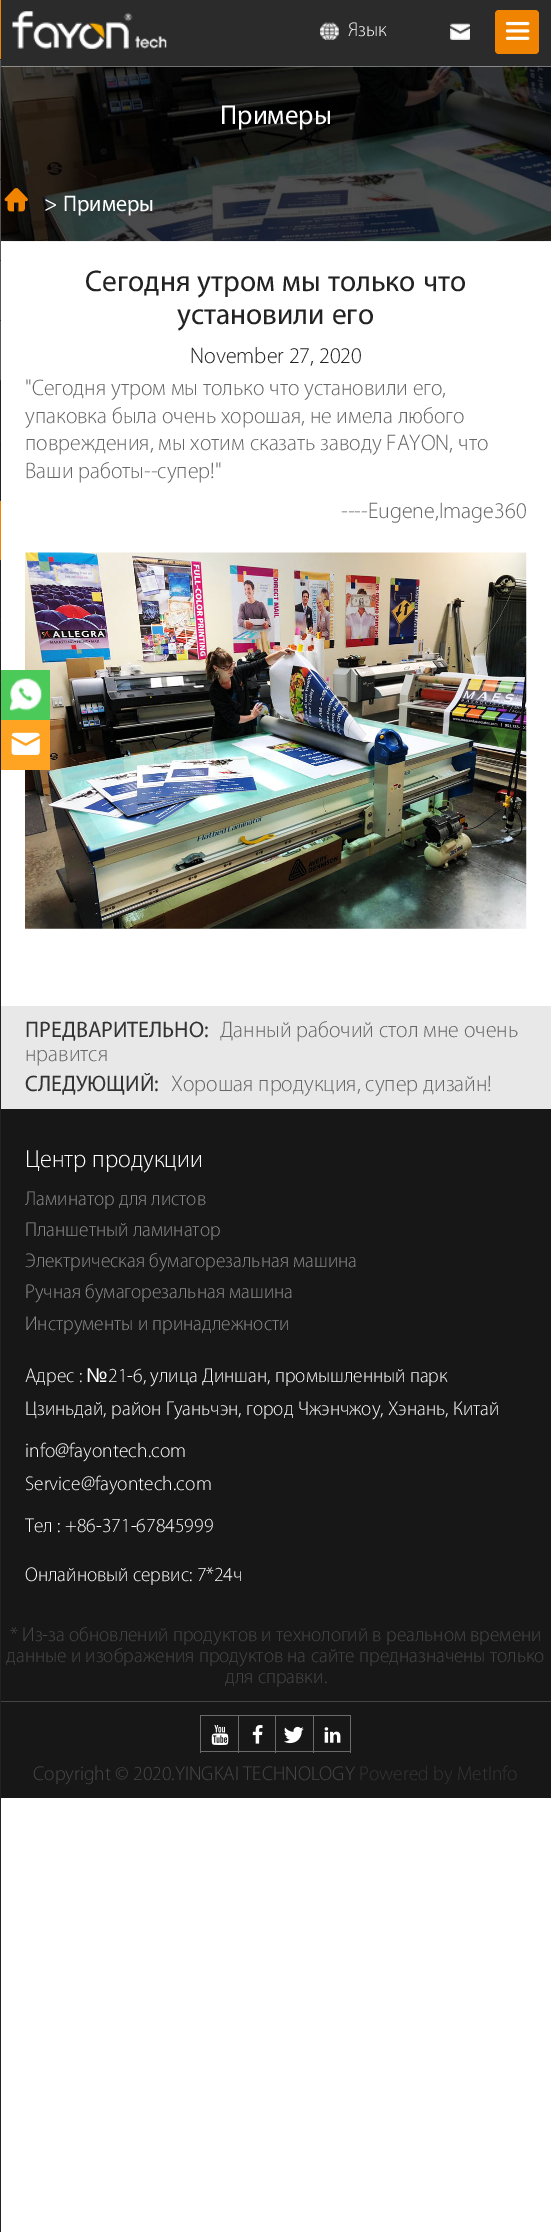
%!PS
<< /PageSize [551 2232] >> setpagedevice
/rgb { dup -16 bitshift 255 div exch dup -8 bitshift 255 and 255 div exch 255 and 255 div setrgbcolor } def
/font { [ exch dup neg 0 0 3 -1 roll 0 0 ] selectfont } def
/text { moveto show } def
/roundrect { 5 dict begin { /r /h /w /y /x } { exch def } forall
  x r add y moveto x w add y 2 copy h add r arct x w add y h add x 1 index r arct
  x y h add x y r arct x y 2 copy exch w add exch r arct closepath end } def
/picture { 5 dict begin { /h /w /y /x /name } { exch def } forall
  gsave x y translate w h scale
  w h 8 [w 0 0 h 0 0] name (r) file false 3 colorimage grestore end } def
0 2232 translate 1 -1 scale
4 setmiterlimit
/s1 { /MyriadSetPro-Thin 20 font 16#FFFFFF rgb } def
/s2 { /MyriadSetPro-Medium 27.5 font 16#FFFFFF rgb } def
/s3 { /MyriadSetPro-Medium 22.5 font 16#FFFFFF rgb } def
/s4 { /MyriadSetPro-Medium 30 font 16#222222 rgb } def
/s5 { /MyriadSetPro-Thin 22.5 font 16#222222 rgb } def
/s6 { /MyriadSetPro-Thin 22.5 font 16#666666 rgb } def
/s7 { /MyriadSetPro-Medium 22.5 font 16#333333 rgb } def
/s8 { /MyriadSetPro-Thin 25 font 16#FFFFFF rgb } def
/s9 { /MyriadSetPro-Thin 20 font 16#8B8B8B rgb } def
/s10 { /LiberationSans-Regular 20 font 16#FFFFFF rgb } def
/s11 { /MyriadSetPro-Thin 20 font 16#454545 rgb } def
/s12 { /MyriadSetPro-Thin 20 font 16#333333 rgb } def
16#FFFFFF rgb
0 0 551 2232 rectfill
16#2B2B2B rgb
1 0 550 66 rectfill
16#171717 rgb
1 1109 550 689 rectfill
16#454545 rgb
0 1701 551 1 rectfill
16#222222 rgb
0 381 1 1851 rectfill
16#F08300 rgb
0 0 1 60 rectfill
16#2E2E2E rgb
0 59 1 1 rectfill
16#555555 rgb
0 60 1 321 rectfill
16#2E2E2E rgb
0 119 1 1 rectfill
0 179 1 1 rectfill
0 260 1 1 rectfill
0 320 1 1 rectfill
0 380 1 1 rectfill
0 440 1 1 rectfill
0 500 1 1 rectfill
16#F08300 rgb
0 501 1 60 rectfill
16#2E2E2E rgb
0 560 1 1 rectfill
0 620 1 1 rectfill
0 680 1 1 rectfill
16#F08300 rgb
495 10 44 44 4 roundrect fill
(pic1.raw) 505 21 25 19 picture
(pic2.raw) 12 11 155 38 picture
(pic3.raw) 320 22 19 18 picture
s1
(Язык) 348 36 text
(pic4.raw) 450 23 20 17 picture
(pic5.raw) 1 66 550 176 picture
s2
(Примеры) 220 124 text
(pic6.raw) 4 188 24 24 picture
s3
(> Примеры) 44 211 text
s4
(Сегодня утром мы только что) 85 291 text
(установили его) 177 324 text
s5
(November 27, 2020) 190 363 text
s6
("Сегодня утром мы только что установили его,) 25 395 text
(упаковка была очень хорошая, не имела любого) 25 423 text
(повреждения, мы хотим сказать заводу FAYON, что) 25 450 text
(Ваши работы--супер!") 25 478 text
(----Eugene,Image360) 341 518 text
(pic7.raw) 25 552 502 377 picture
16#E8E8E8 rgb
1 1006 550 103 rectfill
s7
(ПРЕДВАРИТЕЛЬНО:) 25 1037 text
s6
(Данный рабочий стол мне очень) 220 1037 text
(нравится) 25 1061 text
gsave
25 1073 501 23 rectclip
s7
(СЛЕДУЮЩИЙ:) 25 1091 text
grestore
(Хорошая продукция, супер дизайн!) 171 1091 text
16#4BCA59 rgb
1 670 49 50 rectfill
(pic8.raw) 10 678 32 33 picture
16#FEA322 rgb
1 720 49 50 rectfill
(pic9.raw) 11 732 29 23 picture
s8
(Центр продукции) 25 1167 text
s9
(Ламинатор для листов) 25 1205 text
(Планшетный ламинатор) 25 1236 text
(Электрическая бумагорезальная машина) 25 1267 text
(Ручная бумагорезальная машина) 25 1298 text
(Инструменты и принадлежности) 25 1330 text
s1
(Адрес :) 25 1382 text
s10
(№) 86 1382 text
s1
(21-6, улица Диншан, промышленный парк) 108 1382 text
(Цзиньдай, район Гуаньчэн, город Чжэнчжоу, Хэнань, Китай) 25 1415 text
(info@fayontech.com) 25 1457 text
(Service@fayontech.com) 25 1490 text
(Тел : +86-371-67845999) 25 1532 text
(Онлайновый сервис: 7*24ч) 25 1581 text
s11
(* Из-за обновлений продуктов и технологий в реальном времени) 10 1641 text
(данные и изображения продуктов на сайте предназначены только) 6 1662 text
(для справки.) 225 1683 text
16#6A6A6A rgb
350 1715 1 38 rectfill
200 1715 150 1 rectfill
200 1751 150 1 rectfill
200 1715 1 38 rectfill
(pic10.raw) 211 1725 18 20 picture
238 1715 1 38 rectfill
(pic11.raw) 252 1725 11 19 picture
275 1715 1 38 rectfill
(pic12.raw) 284 1726 20 18 picture
313 1715 1 38 rectfill
(pic13.raw) 324 1727 17 16 picture
s11
(Copyright © 2020.YINGKAI TECHNOLOGY) 33 1780 text
s12
(Powered by MetInfo) 359 1780 text
showpage
